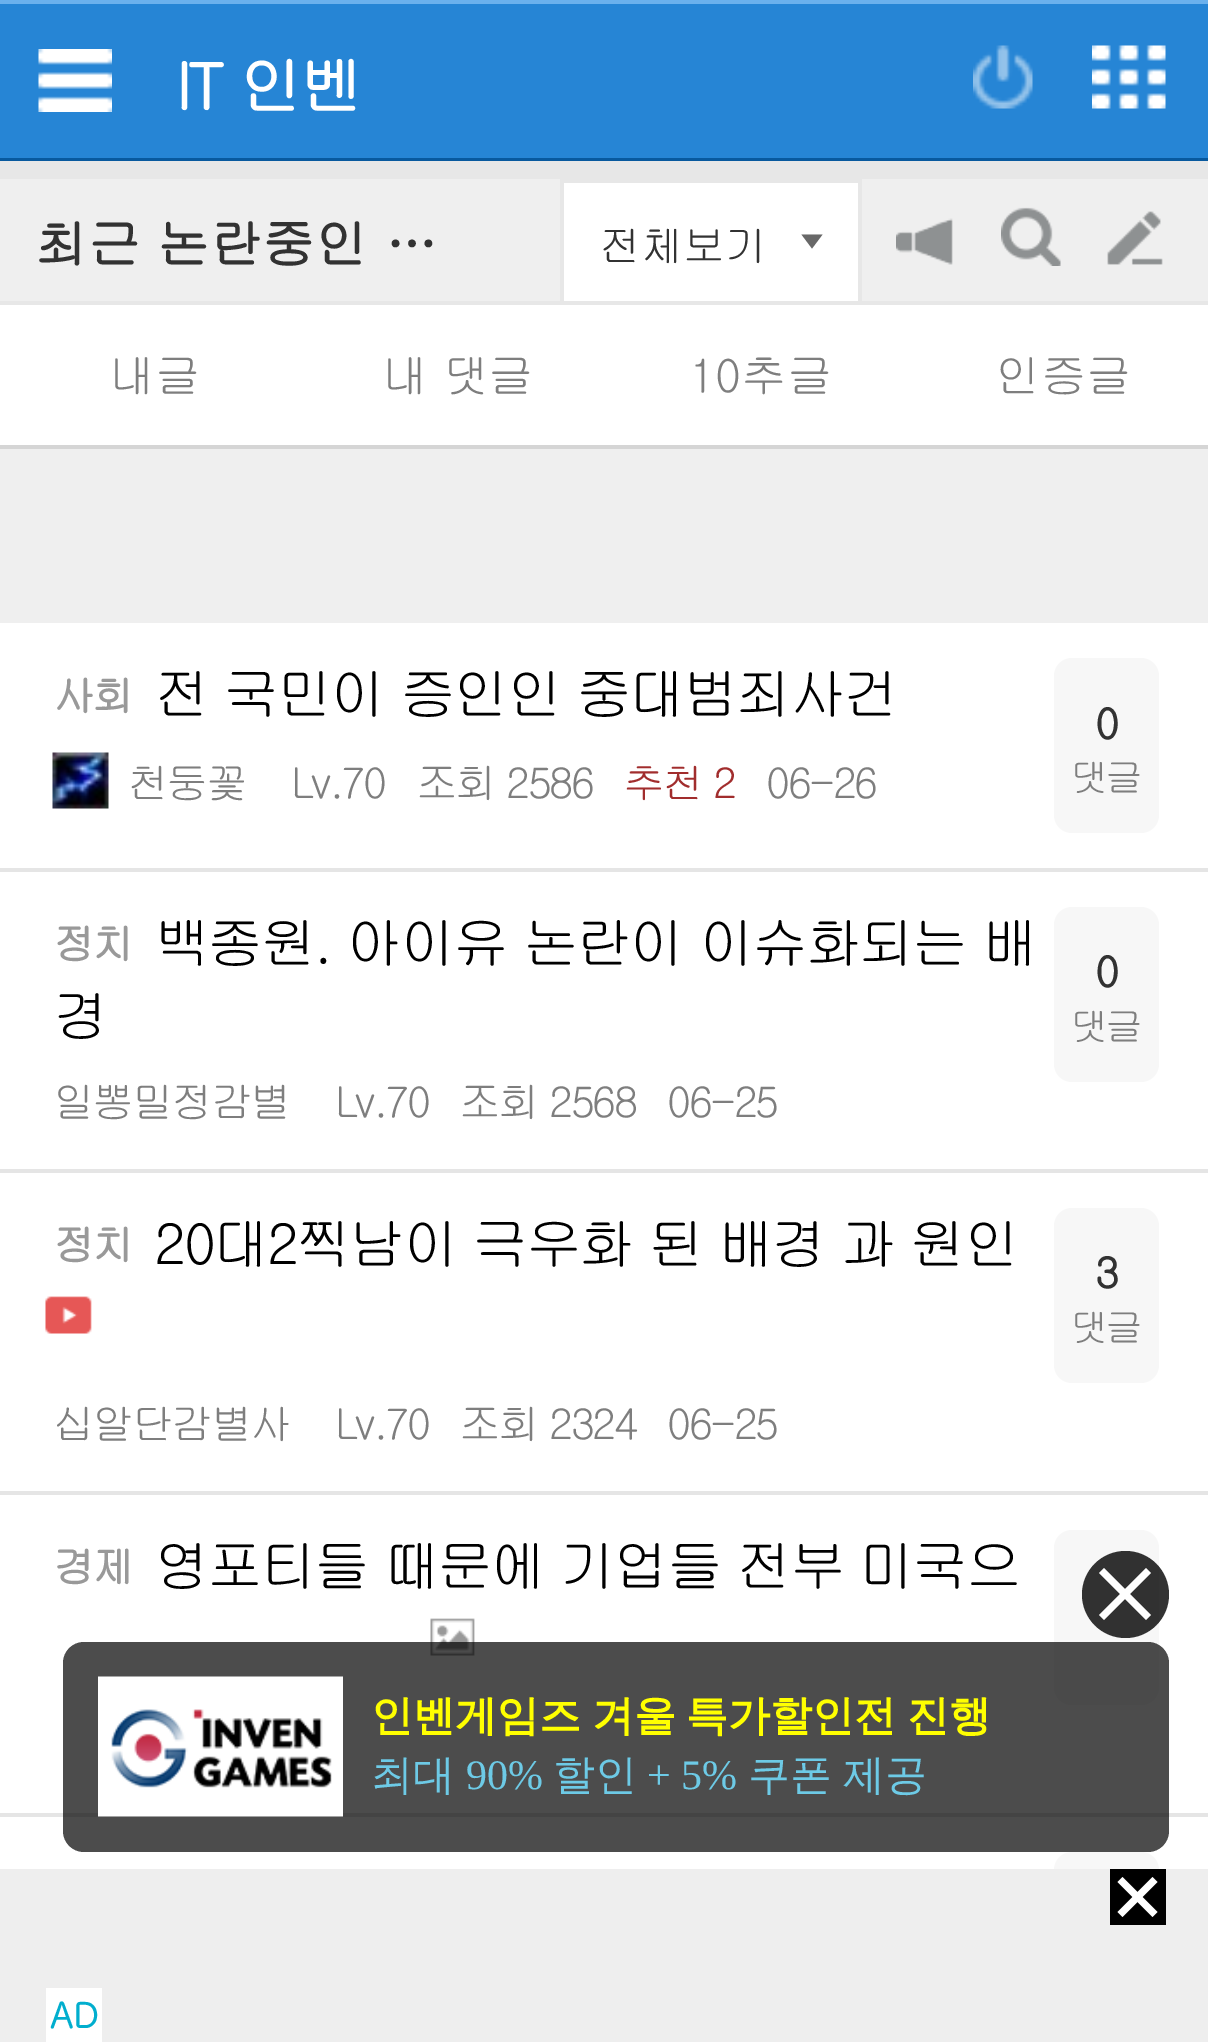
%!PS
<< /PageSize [1208 2042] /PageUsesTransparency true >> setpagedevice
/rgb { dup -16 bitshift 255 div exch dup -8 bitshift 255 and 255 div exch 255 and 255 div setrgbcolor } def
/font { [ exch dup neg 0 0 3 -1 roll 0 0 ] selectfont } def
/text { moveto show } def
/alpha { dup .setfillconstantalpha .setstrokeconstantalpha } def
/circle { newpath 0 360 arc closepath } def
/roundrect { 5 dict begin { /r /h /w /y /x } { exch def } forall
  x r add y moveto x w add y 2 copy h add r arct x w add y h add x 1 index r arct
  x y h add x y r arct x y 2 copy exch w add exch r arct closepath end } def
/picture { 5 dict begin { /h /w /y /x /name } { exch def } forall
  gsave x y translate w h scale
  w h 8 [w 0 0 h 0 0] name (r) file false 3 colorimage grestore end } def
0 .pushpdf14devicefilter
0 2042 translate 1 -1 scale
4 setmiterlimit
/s1 { /Gulim-Bold 52.5 font 16#323232 rgb } def
/s2 { /Gulim-Regular 42 font 16#323232 rgb } def
/s3 { /Gulim-Regular 45.5 font 16#7E7E7E rgb } def
/s4 { /WenQuanYiZenHei-Medium 42 font 16#6DCAE6 rgb } def
/s5 { /LiberationSerif-Regular 42 font 16#6DCAE6 rgb } def
/s6 { /Gulim-Bold 35 font 16#01AECE rgb } def
16#FFFFFF rgb
0 0 1208 2042 rectfill
16#2685D5 rgb
0 4 1208 154 rectfill
16#6BB1ED rgb
0 0 1208 4 rectfill
16#08599E rgb
0 158 1208 3 rectfill
(pic1.raw) 38 49 74 63 picture
/Gulim-Bold 63 font
16#FFFFFF rgb
175 109 moveto -3.5 0 (IT 인벤) ashow
(pic2.raw) 973 45 60 64 picture
(pic3.raw) 1092 45 74 64 picture
16#EFEFEF rgb
0 179 1208 122 rectfill
16#E7E7E7 rgb
0 301 1208 4 rectfill
0 161 1208 18 rectfill
s1
(최근 논란중인 …) 35 263 text
16#FFFFFF rgb
564 183 294 118 rectfill
16#E7E7E7 rgb
560 179 301 4 rectfill
858 179 4 122 rectfill
560 179 4 122 rectfill
s2
(전체보기) 599 261 text
16#686868 rgb
801.5 234.5 moveto 822.5 234.5 lineto 812 248.5 lineto closepath fill
(pic4.raw) 896 218 57 47 picture
(pic5.raw) 1001 207 60 59 picture
(pic6.raw) 1107 211 56 54 picture
16#D5D5D5 rgb
0 445 1208 4 rectfill
s3
(내글) 109 392 text
(내 댓글) 382 392 text
(10추글) 689 392 text
(인증글) 995 392 text
16#EFEFEF rgb
0 449 1208 174 rectfill
16#E5E5E5 rgb
0 868 1208 4 rectfill
/Gulim-Bold 42 font
16#999999 rgb
53 711 moveto -2.6 0 (사회) ashow
/Gulim-Regular 56 font
16#000000 rgb
154 714 moveto -2.6 0 (전 국민이 증인인 중대범죄사건) ashow
(pic7.raw) 52 752 57 57 picture
/Gulim-Regular 42 font
16#7E7E7E rgb
127 798 moveto -2.6 0 (천둥꽃) ashow
291 798 moveto -2.6 0 (Lv.70) ashow
416 798 moveto -2.6 0 (조회 2586) ashow
16#A12D2D rgb
623 798 moveto -2.6 0 (추천 2) ashow
16#7E7E7E rgb
766 798 moveto -2.6 0 (06-26) ashow
16#F7F7F7 rgb
1054 658 105 175 18 roundrect fill
/Gulim-Bold 42 font
16#323232 rgb
1095 739 moveto -2.6 0 (0) ashow
/Gulim-Regular 38 font
16#7E7E7E rgb
1070 791 moveto -2.6 0 (댓글) ashow
16#E5E5E5 rgb
0 1169 1208 4 rectfill
/Gulim-Bold 42 font
16#999999 rgb
53 959 moveto -2.6 0 (정치) ashow
/Gulim-Regular 56 font
16#000000 rgb
154 963 moveto -2.6 0 (백종원. 아이유 논란이 이슈화되는 배) ashow
53 1036 moveto -2.6 0 (경) ashow
/Gulim-Regular 42 font
16#7E7E7E rgb
53 1117 moveto -2.6 0 (일뽕밀정감별) ashow
335 1117 moveto -2.6 0 (Lv.70) ashow
459 1117 moveto -2.6 0 (조회 2568) ashow
667 1117 moveto -2.6 0 (06-25) ashow
16#F7F7F7 rgb
1054 907 105 175 18 roundrect fill
/Gulim-Bold 42 font
16#323232 rgb
1095 987 moveto -2.6 0 (0) ashow
/Gulim-Regular 38 font
16#7E7E7E rgb
1070 1040 moveto -2.6 0 (댓글) ashow
16#E5E5E5 rgb
0 1491 1208 4 rectfill
/Gulim-Bold 42 font
16#999999 rgb
53 1260 moveto -2.6 0 (정치) ashow
/Gulim-Regular 56 font
16#000000 rgb
154 1264 moveto -2.6 0 (20대2찍남이 극우화 된 배경 과 원인) ashow
(pic8.raw) 45 1296 47 38 picture
/Gulim-Regular 42 font
16#7E7E7E rgb
53 1439 moveto -2.6 0 (십알단감별사) ashow
335 1439 moveto -2.6 0 (Lv.70) ashow
459 1439 moveto -2.6 0 (조회 2324) ashow
667 1439 moveto -2.6 0 (06-25) ashow
16#F7F7F7 rgb
1054 1208 105 175 18 roundrect fill
/Gulim-Bold 42 font
16#323232 rgb
1095 1288 moveto -2.6 0 (3) ashow
/Gulim-Regular 38 font
16#7E7E7E rgb
1070 1341 moveto -2.6 0 (댓글) ashow
16#E5E5E5 rgb
0 1813 1208 4 rectfill
/Gulim-Bold 42 font
16#999999 rgb
53 1582 moveto -2.6 0 (경제) ashow
/Gulim-Regular 56 font
16#000000 rgb
154 1586 moveto -2.6 0 (영포티들 때문에 기업들 전부 미국으) ashow
(pic9.raw) 430 1618 45 38 picture
16#F7F7F7 rgb
1054 1530 105 175 18 roundrect fill
1054 1852 105 175 18 roundrect fill
0.8 alpha
16#000000 rgb
1125.5 1594.5 43.5 circle fill
1 alpha
16#FFFFFF rgb
1146 1568 moveto 1151 1573 lineto 1104 1620 lineto 1099 1615 lineto closepath fill
1104 1568 moveto 1151 1615 lineto 1146 1620 lineto 1099 1573 lineto closepath fill
0.7 alpha
16#000000 rgb
63 1642 1106 210 21 roundrect fill
1 alpha
(pic10.raw) 98 1676 245 141 picture
/WenQuanYiZenHei-Bold 42 font
16#FFFF00 rgb
371 1730 moveto -2 0 32 (인벤게임즈 겨울 특가할인전 진행) widthshow
s4
(최대) 371 1789 text
s5
(90%) 466 1789 text
s4
(할인) 553 1789 text
s5
(+ 5%) 647 1789 text
s4
(쿠폰) 748 1789 text
(제공) 843 1789 text
16#EEEEEE rgb
0 1869 1208 173 rectfill
16#000000 rgb
1110 1869 56 56 rectfill
16#FFFFFF rgb
1117.5 1882 moveto 1122.5 1877 lineto 1157.5 1912 lineto 1152.5 1917 lineto closepath fill
1152.5 1877 moveto 1157.5 1882 lineto 1122.5 1917 lineto 1117.5 1912 lineto closepath fill
46 1988 56 54 rectfill
s6
(AD) 50 2028 text
.poppdf14devicefilter showpage
